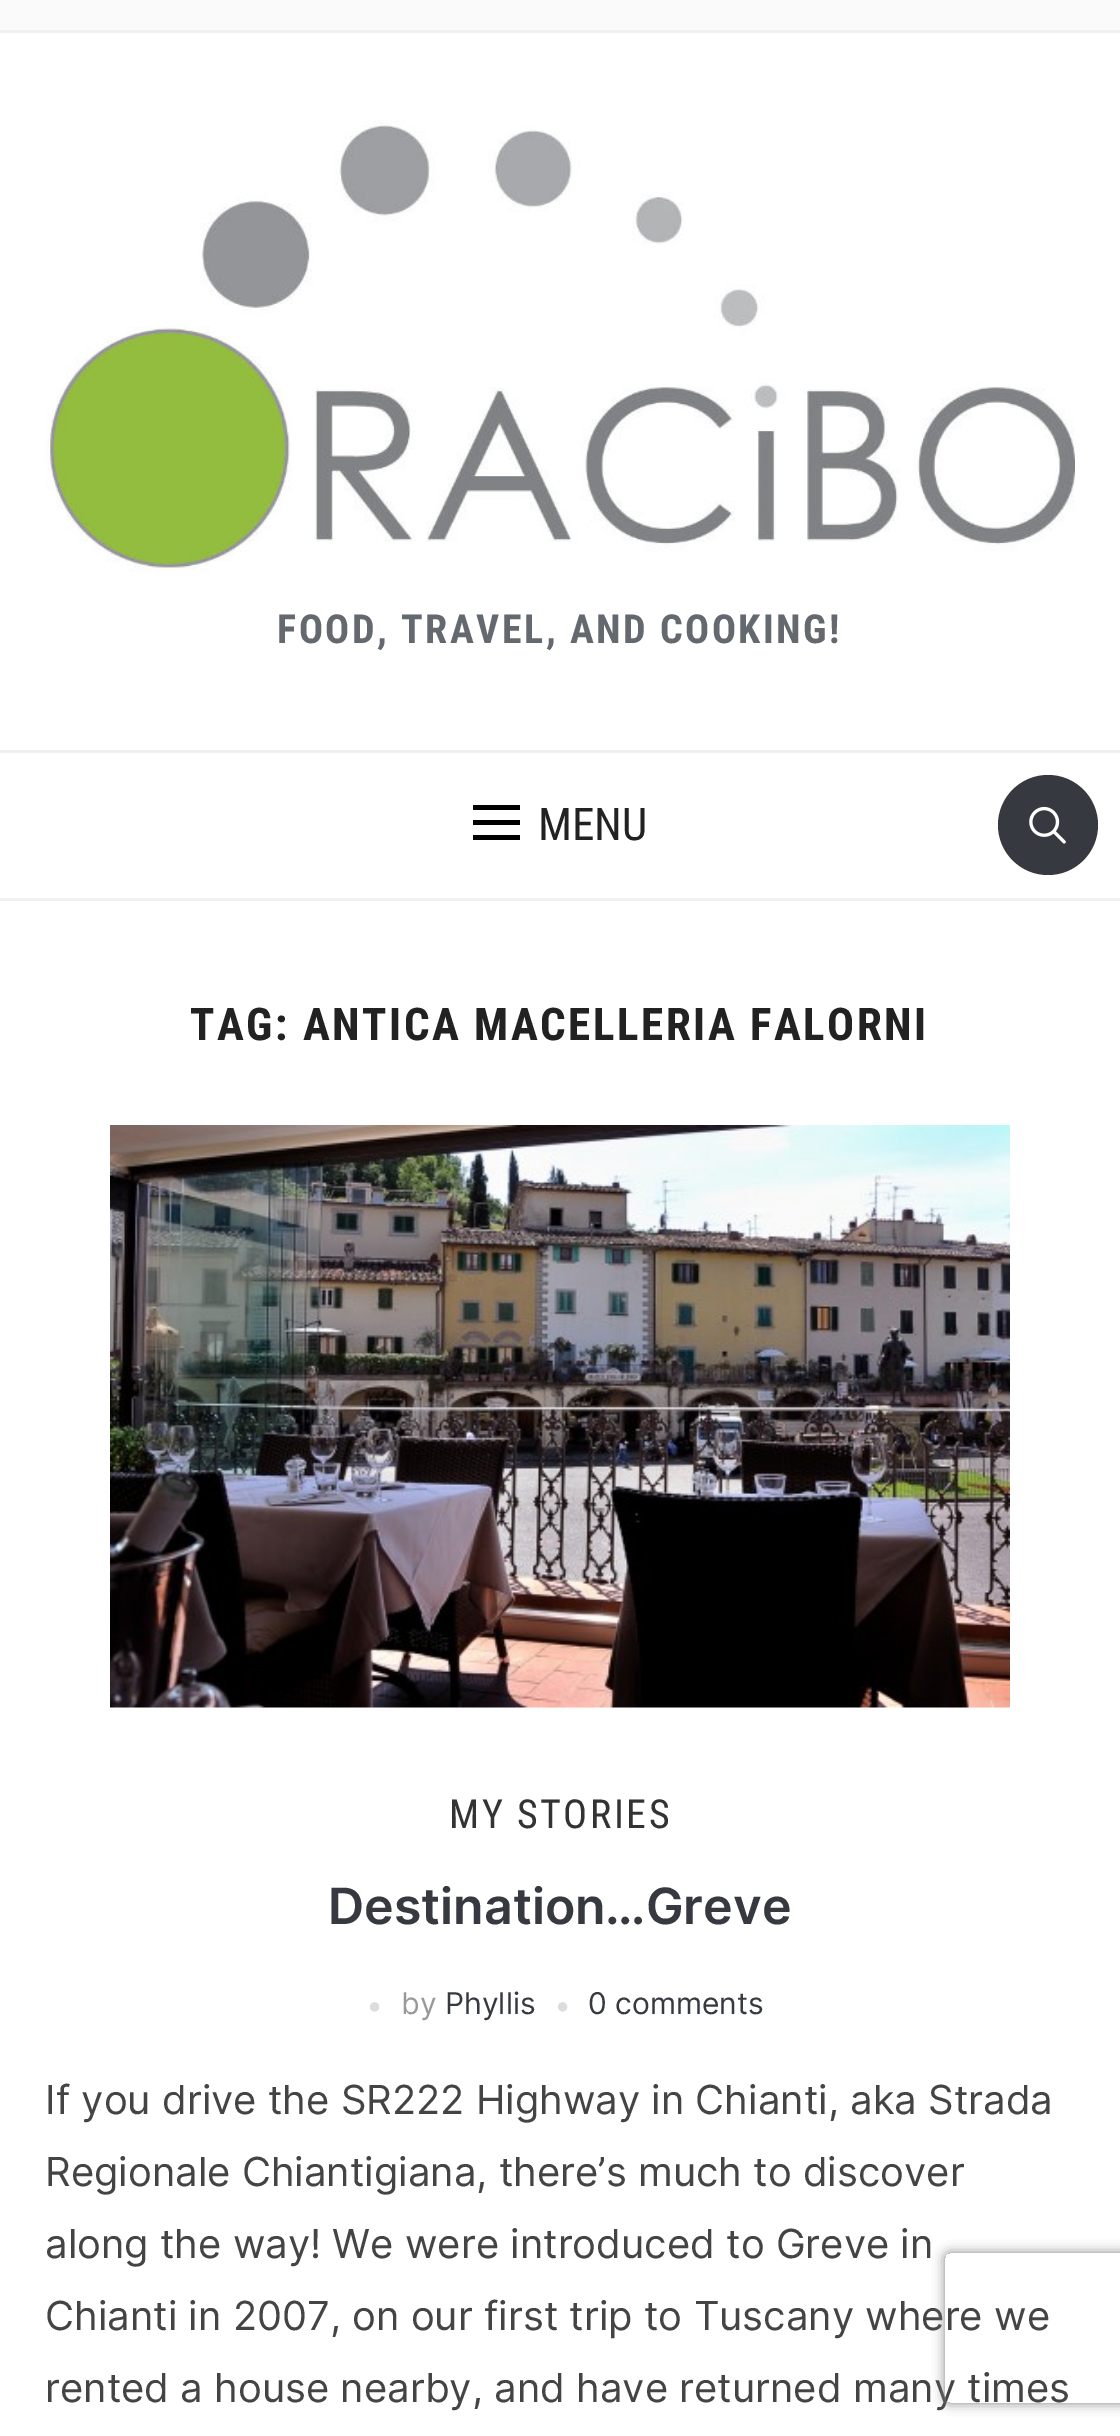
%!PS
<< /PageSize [1120 2436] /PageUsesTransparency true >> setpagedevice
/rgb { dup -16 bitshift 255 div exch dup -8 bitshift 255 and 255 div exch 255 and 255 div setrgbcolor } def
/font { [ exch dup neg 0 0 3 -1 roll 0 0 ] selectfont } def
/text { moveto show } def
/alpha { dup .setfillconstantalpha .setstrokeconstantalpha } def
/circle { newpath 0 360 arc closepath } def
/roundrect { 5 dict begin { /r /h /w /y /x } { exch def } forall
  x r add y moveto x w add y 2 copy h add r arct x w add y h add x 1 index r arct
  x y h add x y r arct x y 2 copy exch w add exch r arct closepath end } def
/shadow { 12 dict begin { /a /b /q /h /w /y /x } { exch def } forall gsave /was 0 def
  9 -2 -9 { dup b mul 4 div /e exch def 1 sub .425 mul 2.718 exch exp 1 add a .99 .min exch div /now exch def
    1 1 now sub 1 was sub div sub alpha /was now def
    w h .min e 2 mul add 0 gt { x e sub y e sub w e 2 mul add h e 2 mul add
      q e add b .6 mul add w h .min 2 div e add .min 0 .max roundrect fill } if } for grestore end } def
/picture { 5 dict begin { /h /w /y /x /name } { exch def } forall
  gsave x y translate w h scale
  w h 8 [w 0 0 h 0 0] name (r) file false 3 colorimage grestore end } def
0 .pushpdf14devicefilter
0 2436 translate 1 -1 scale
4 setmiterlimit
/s1 { /RobotoCondensed-Regular 45 font 16#222222 rgb } def
/s2 { /Inter-SemiBold 50 font 16#363940 rgb } def
/s3 { /LiberationSans-Regular 22 font 16#DBDDDD rgb } def
/s4 { /Inter-Regular 30 font 16#999999 rgb } def
/s5 { /Inter-Regular 30 font 16#363940 rgb } def
/s6 { /Inter-Regular 40 font 16#444444 rgb } def
16#FFFFFF rgb
0 0 1120 2436 rectfill
16#FAFAFA rgb
0 0 1120 30 rectfill
16#F0F0F0 rgb
0 30 1120 3 rectfill
(pic1.raw) 45 120 1030 453 picture
/RobotoCondensed-Bold 40 font
16#646970 rgb
277 643 moveto 2.5 0 (FOOD, TRAVEL, AND COOKING!) ashow
16#F0F0F0 rgb
0 750 1120 3 rectfill
0 898 1120 3 rectfill
16#000000 rgb
473 805 47 5 rectfill
473 820 47 5 rectfill
473 835 47 5 rectfill
s1
(MENU) 538 840 text
16#363940 rgb
1048 825 50 circle fill
(pic2.raw) 1029 806 37 38 picture
/RobotoCondensed-Bold 45 font
16#222222 rgb
190 1040 moveto 2.5 0 (TAG: ANTICA MACELLERIA FALORNI) ashow
(pic3.raw) 110 1125 900 583 picture
/RobotoCondensed-Regular 40 font
16#333333 rgb
449 1828 moveto 2.5 0 (MY STORIES) ashow
s2
(Destination…Greve) 328 1924 text
s3
(●) 368 2013 text
s4
(by) 401 2014 text
s5
(Phyllis) 445 2014 text
s3
(●) 556 2013 text
s5
(0 comments) 588 2014 text
s6
(If you drive the SR222 Highway in Chianti, aka Strada) 45 2114 text
(Regionale Chiantigiana, there’s much to discover) 45 2186 text
(along the way! We were introduced to Greve in) 45 2258 text
(Chianti in 2007, on our first trip to Tuscany where we) 45 2330 text
(rented a house nearby, and have returned many times) 45 2402 text
gsave
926 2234 moveto 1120 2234 lineto 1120 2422 lineto 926 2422 lineto closepath 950 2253 moveto 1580 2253 lineto 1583 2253 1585 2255 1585 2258 curveto 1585 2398 lineto 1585 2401 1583 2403 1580 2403 curveto 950 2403 lineto 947 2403 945 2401 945 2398 curveto 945 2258 lineto 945 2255 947 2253 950 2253 curveto closepath eoclip newpath
16#808080 rgb
945 2253 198 150 5 6 1 shadow
grestore
.poppdf14devicefilter showpage
